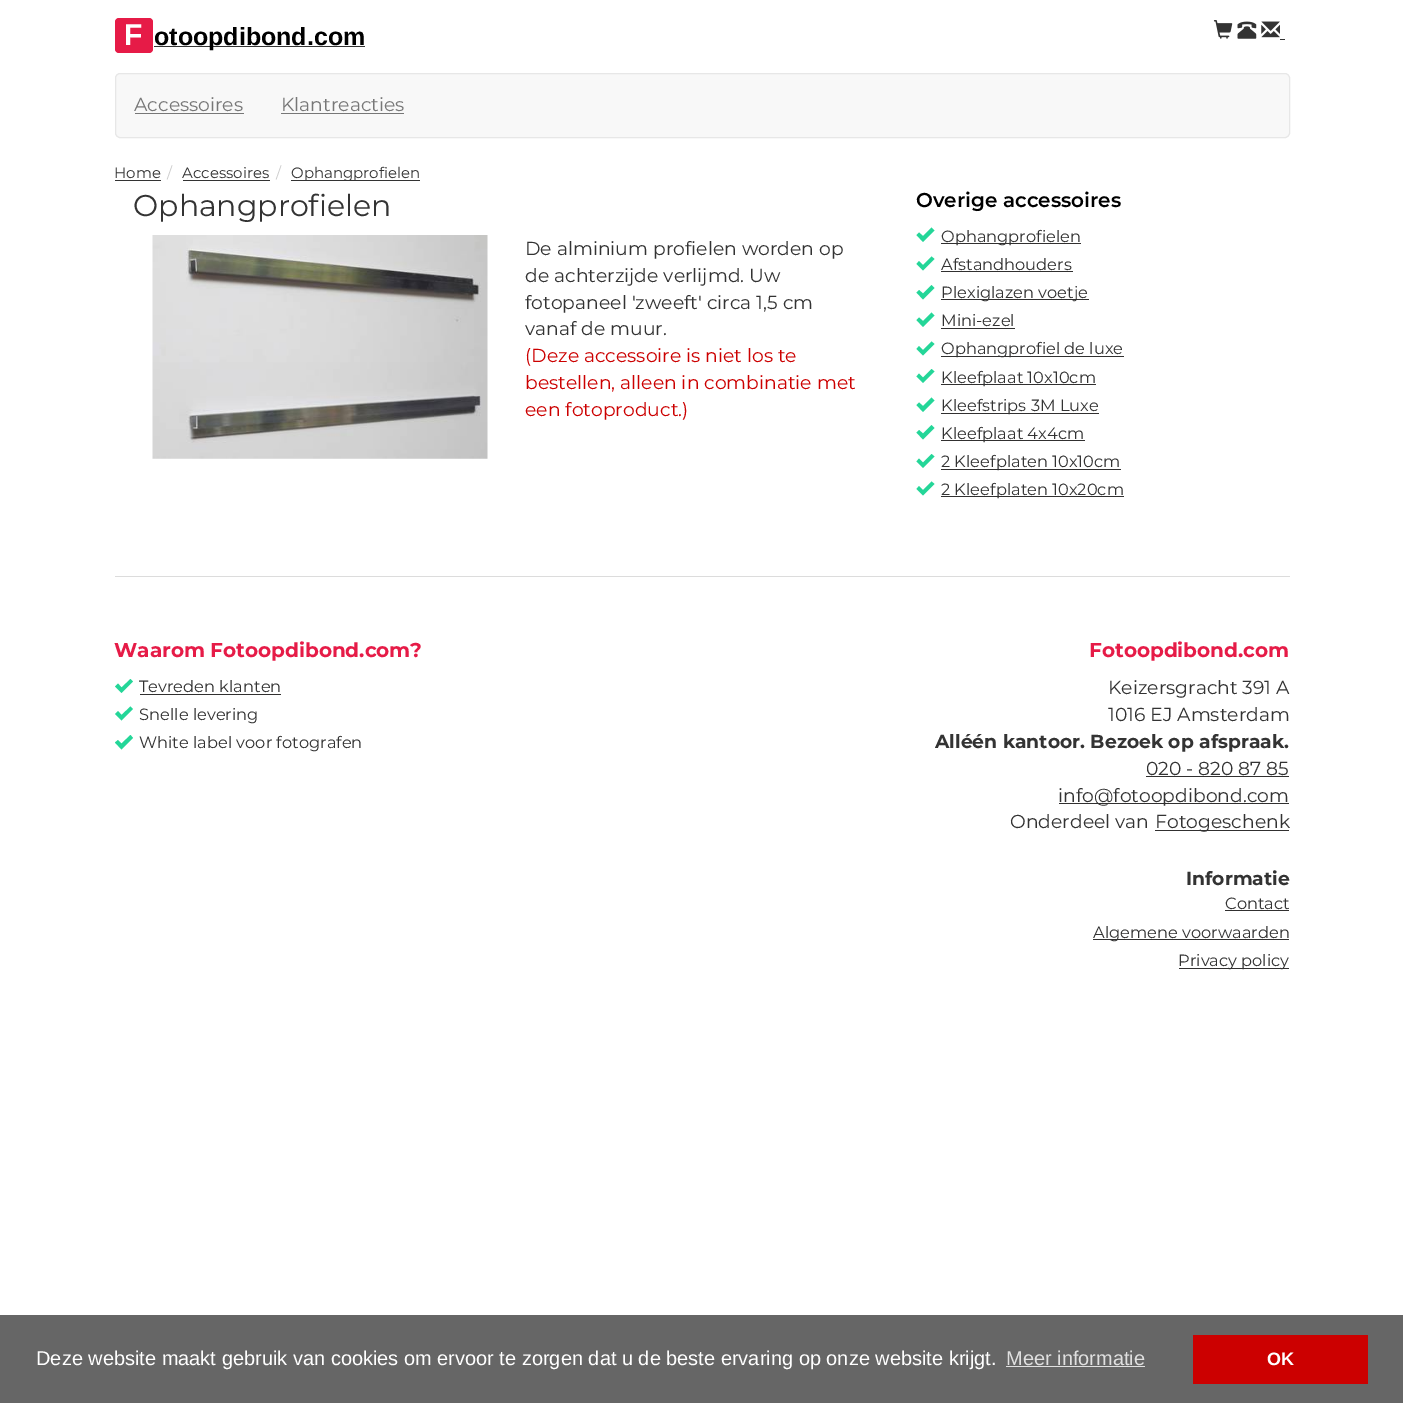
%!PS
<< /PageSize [1403 1403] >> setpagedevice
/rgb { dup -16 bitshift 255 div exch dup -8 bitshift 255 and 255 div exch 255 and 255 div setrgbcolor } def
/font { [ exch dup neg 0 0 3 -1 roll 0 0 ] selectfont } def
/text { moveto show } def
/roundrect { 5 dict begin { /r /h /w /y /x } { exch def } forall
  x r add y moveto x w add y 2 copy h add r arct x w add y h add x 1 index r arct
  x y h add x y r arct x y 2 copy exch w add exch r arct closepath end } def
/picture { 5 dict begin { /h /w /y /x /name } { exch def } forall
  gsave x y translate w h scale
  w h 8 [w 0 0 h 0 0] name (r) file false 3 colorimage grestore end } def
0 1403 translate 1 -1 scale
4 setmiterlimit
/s1 { /LiberationSans-Bold 30 font 16#FFFFFF rgb } def
/s2 { /LiberationSans-Bold 25 font 16#000000 rgb } def
/s3 { /Montserrat-Regular 18.75 font 16#777777 rgb } def
/s4 { /Montserrat-Regular 15 font 16#333333 rgb } def
/s5 { /Montserrat-Regular 15 font 16#CCCCCC rgb } def
/s6 { /Montserrat-Regular 30 font 16#333333 rgb } def
/s7 { /Montserrat-Regular 18.75 font 16#333333 rgb } def
/s8 { /Montserrat-Regular 18.75 font 16#CC0000 rgb } def
/s9 { /Montserrat-SemiBold 20 font 16#000000 rgb } def
/s10 { /Montserrat-Regular 16.25 font 16#333333 rgb } def
/s11 { /Montserrat-Bold 20 font 16#E61B47 rgb } def
/s12 { /Montserrat-Bold 18.75 font 16#333333 rgb } def
/s13 { /LiberationSans-Regular 20 font 16#FFFFFF rgb } def
/s14 { /LiberationSans-Regular 20 font 16#E0E0E0 rgb } def
/s15 { /LiberationSans-Bold 18 font 16#FFFFFF rgb } def
16#FFFFFF rgb
0 0 1403 1403 rectfill
16#E61B47 rgb
115 18 38 35 4 roundrect fill
s1
(F) 124 45 text
16#333333 rgb
154 46 211 1 rectfill
s2
(otoopdibond.com) 154 45 text
(pic1.raw) 1213 20 20 19 picture
(pic2.raw) 1237 21 20 18 picture
(pic3.raw) 1261 21 19 17 picture
16#333333 rgb
1280 39 5 1 rectfill
16#F8F8F8 rgb
115.5 73.5 1174 64 4.5 roundrect gsave fill grestore
16#E7E7E7 rgb
stroke
s3
(Accessoires) 134 111 text
135 113 109 1 rectfill
(Klantreacties) 281 111 text
281 113 123 1 rectfill
s4
(Home) 114 178 text
115 180 46 1 rectfill
s5
(/) 167 178 text
s4
(Accessoires) 182 178 text
183 180 87 1 rectfill
s5
(/) 276 178 text
16#333333 rgb
291 180 129 1 rectfill
(Ophangprofielen) 291 178 text
s6
(Ophangprofielen) 133 216 text
(pic4.raw) 152 235 336 224 picture
s7
(De alminium profielen worden op) 525 255 text
(de achterzijde verlijmd. Uw) 525 282 text
(fotopaneel 'zweeft' circa 1,5 cm) 525 309 text
(vanaf de muur.) 525 335 text
s8
(\(Deze accessoire is niet los te) 525 362 text
(bestellen, alleen in combinatie met) 525 389 text
(een fotoproduct.\)) 525 416 text
s9
(Overige accessoires) 916 207 text
16#24D698 rgb
923 242 moveto 916.5 235 lineto 919 232.5 lineto 923 236 lineto 931.5 227.5 lineto 934.5 230.5 lineto closepath fill
16#313030 rgb
941 243 140 1 rectfill
s10
(Ophangprofielen) 941 242 text
16#24D698 rgb
923 270.5 moveto 916.5 264 lineto 919 261 lineto 923 265 lineto 931.5 256.5 lineto 934.5 259 lineto closepath fill
s10
(Afstandhouders) 941 270 text
16#313030 rgb
941 271 132 1 rectfill
16#24D698 rgb
923 299.5 moveto 916.5 292.5 lineto 919 290 lineto 923 293.5 lineto 931.5 285 lineto 934.5 288 lineto closepath fill
16#313030 rgb
941 299 148 1 rectfill
s10
(Plexiglazen voetje) 941 298 text
16#24D698 rgb
923 327 moveto 916.5 320 lineto 919 317.5 lineto 923 321 lineto 931.5 312.5 lineto 934.5 315.5 lineto closepath fill
s10
(Mini-ezel) 941 326 text
16#313030 rgb
941 328 74 1 rectfill
16#24D698 rgb
923 355.5 moveto 916.5 349 lineto 919 346 lineto 923 350 lineto 931.5 341.5 lineto 934.5 344 lineto closepath fill
16#313030 rgb
941 356 183 1 rectfill
s10
(Ophangprofiel de luxe) 941 354 text
16#24D698 rgb
923 383 moveto 916.5 376.5 lineto 919 373.5 lineto 923 377.5 lineto 931.5 369 lineto 934.5 371.5 lineto closepath fill
16#313030 rgb
941 384 155 1 rectfill
s10
(Kleefplaat 10x10cm) 941 383 text
16#24D698 rgb
923 412 moveto 916.5 405 lineto 919 402.5 lineto 923 406 lineto 931.5 397.5 lineto 934.5 400.5 lineto closepath fill
16#313030 rgb
941 413 158 1 rectfill
s10
(Kleefstrips 3M Luxe) 941 411 text
16#24D698 rgb
923 439.5 moveto 916.5 432.5 lineto 919 430 lineto 923 433.5 lineto 931.5 425 lineto 934.5 428 lineto closepath fill
16#313030 rgb
941 440 144 1 rectfill
s10
(Kleefplaat 4x4cm) 941 439 text
16#24D698 rgb
923 468 moveto 916.5 461.5 lineto 919 458.5 lineto 923 462.5 lineto 931.5 454 lineto 934.5 456.5 lineto closepath fill
16#313030 rgb
941 469 180 1 rectfill
s10
(2 Kleefplaten 10x10cm) 941 467 text
16#24D698 rgb
923 495.5 moveto 916.5 489 lineto 919 486 lineto 923 490 lineto 931.5 481.5 lineto 934.5 484 lineto closepath fill
16#313030 rgb
941 496 183 1 rectfill
s10
(2 Kleefplaten 10x20cm) 941 495 text
16#DCDCDC rgb
115 576 1175 1 rectfill
s11
(Waarom Fotoopdibond.com?) 114 657 text
16#24D698 rgb
121.5 693 moveto 115 686.5 lineto 118 683.5 lineto 121.5 687.5 lineto 130.5 679 lineto 133 681.5 lineto closepath fill
s10
(Tevreden klanten) 139 692 text
16#313030 rgb
140 694 141 1 rectfill
16#24D698 rgb
121.5 720.5 moveto 115 714 lineto 118 711 lineto 121.5 715 lineto 130.5 706.5 lineto 133 709 lineto closepath fill
s10
(Snelle levering) 139 720 text
16#24D698 rgb
121.5 749.5 moveto 115 742.5 lineto 118 740 lineto 121.5 743.5 lineto 130.5 735 lineto 133 738 lineto closepath fill
s10
(White label voor fotografen) 139 748 text
s11
(Fotoopdibond.com) 1089 657 text
s7
(Keizersgracht 391 A) 1108 694 text
(1016 EJ Amsterdam) 1108 721 text
s12
(Alléén kantoor. Bezoek op afspraak.) 935 748 text
s7
(020 - 820 87 85) 1146 775 text
16#313030 rgb
1146 776 143 1 rectfill
1059 803 230 1 rectfill
s7
(info@fotoopdibond.com) 1058 802 text
(Onderdeel van) 1010 828 text
16#313030 rgb
1155 830 134 1 rectfill
s7
(Fotogeschenk) 1155 828 text
s12
(Informatie) 1186 885 text
s10
(Contact) 1225 909 text
16#313030 rgb
1225 910 64 1 rectfill
1093 939 196 1 rectfill
s10
(Algemene voorwaarden) 1093 938 text
16#313030 rgb
1179 968 110 1 rectfill
s10
(Privacy policy) 1178 966 text
16#666666 rgb
0 1315 1403 88 rectfill
s13
(Deze website maakt gebruik van cookies om ervoor te zorgen dat u de beste ervaring op onze website krijgt.) 36 1365 text
s14
(Meer informatie) 1006 1365 text
1006 1366 139 1 rectfill
16#CC0000 rgb
1193 1335 175 49 rectfill
s15
(OK) 1267 1365 text
showpage
